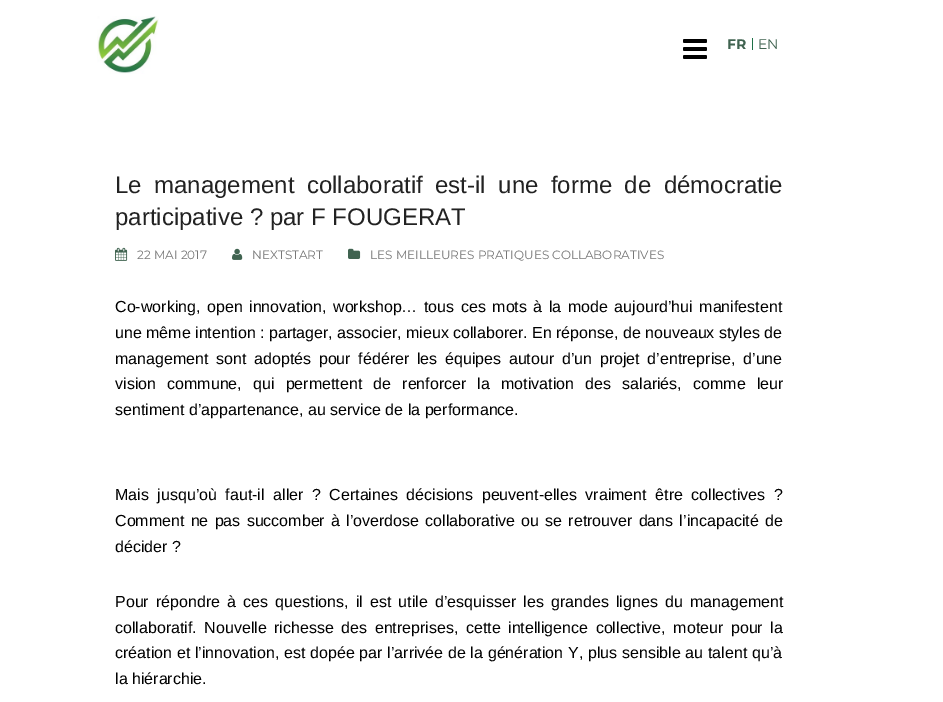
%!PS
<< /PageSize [943 702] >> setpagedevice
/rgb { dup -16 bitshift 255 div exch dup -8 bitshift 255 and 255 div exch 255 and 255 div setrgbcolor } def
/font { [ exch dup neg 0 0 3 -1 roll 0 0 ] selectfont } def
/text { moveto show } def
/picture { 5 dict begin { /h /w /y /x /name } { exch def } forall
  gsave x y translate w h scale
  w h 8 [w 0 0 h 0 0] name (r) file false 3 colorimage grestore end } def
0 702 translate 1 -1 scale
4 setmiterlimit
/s1 { /Montserrat-Bold 14 font 16#406350 rgb } def
/s2 { /Montserrat-Regular 14 font 16#406350 rgb } def
/s3 { /LiberationSans-Regular 24 font 16#222222 rgb } def
/s4 { /Montserrat-Regular 12 font 16#777777 rgb } def
/s5 { /LiberationSans-Regular 16 font 16#000000 rgb } def
16#FFFFFF rgb
0 0 943 702 rectfill
(pic1.raw) 97 16 62 58 picture
(pic2.raw) 683 39 24 20 picture
s1
(FR) 727 49 text
16#1D7046 rgb
752 38 1 12 rectfill
s2
(EN) 758 49 text
/LiberationSans-Regular 24 font
16#222222 rgb
115 193 moveto 5.75 0 32 (Le management collaboratif est-il une forme de démocratie) widthshow
(participative ? par F FOUGERAT) 115 225 text
(pic3.raw) 115 247 13 14 picture
s4
(22 MAI 2017) 137 259 text
(pic4.raw) 232 248 11 12 picture
(NEXTSTART) 252 259 text
(pic5.raw) 348 248 13 11 picture
(LES MEILLEURES PRATIQUES COLLABORATIVES) 370 259 text
/LiberationSans-Regular 16 font
16#000000 rgb
115 312 moveto 2.1 0 32 (Co-working, open innovation, workshop… tous ces mots à la mode aujourd’hui manifestent) widthshow
(une même intention : partager, associer, mieux collaborer. En réponse, de nouveaux styles de) 115 338 text
115 364 moveto 3.25 0 32 (management sont adoptés pour fédérer les équipes autour d’un projet d’entreprise, d’une) widthshow
115 389 moveto 6.75 0 32 (vision commune, qui permettent de renforcer la motivation des salariés, comme leur) widthshow
(sentiment d’appartenance, au service de la performance.) 115 415 text
115 500 moveto 4.1 0 32 (Mais jusqu’où faut-il aller ? Certaines décisions peuvent-elles vraiment être collectives ?) widthshow
115 526 moveto 1.75 0 32 (Comment ne pas succomber à l’overdose collaborative ou se retrouver dans l’incapacité de) widthshow
(décider ?) 115 552 text
115 607 moveto 2.75 0 32 (Pour répondre à ces questions, il est utile d’esquisser les grandes lignes du management) widthshow
115 633 moveto 3.1 0 32 (collaboratif. Nouvelle richesse des entreprises, cette intelligence collective, moteur pour la) widthshow
115 658 moveto 0.3 0 32 (création et l’innovation, est dopée par l’arrivée de la génération Y, plus sensible au talent qu’à) widthshow
(la hiérarchie.) 115 684 text
showpage
